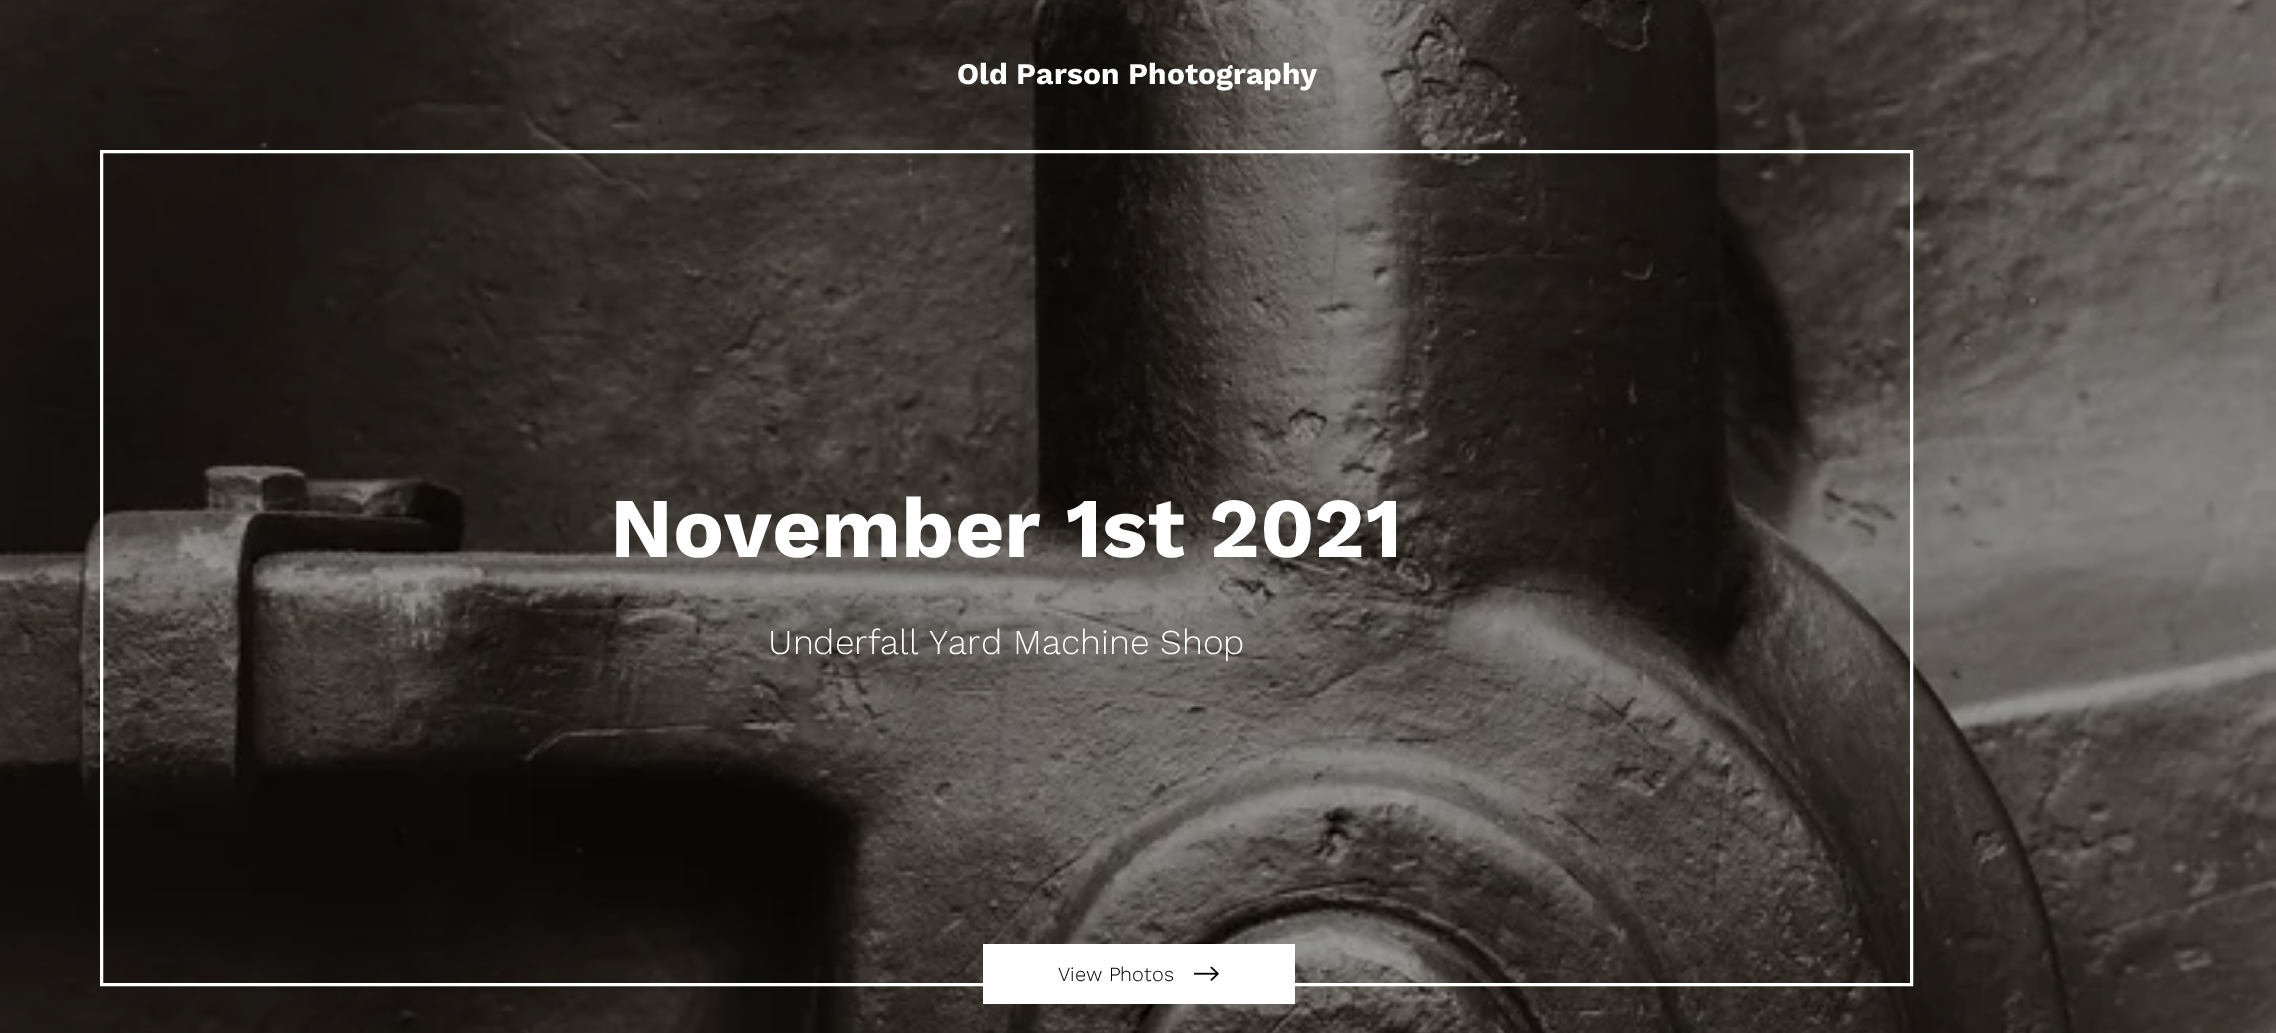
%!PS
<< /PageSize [2276 1033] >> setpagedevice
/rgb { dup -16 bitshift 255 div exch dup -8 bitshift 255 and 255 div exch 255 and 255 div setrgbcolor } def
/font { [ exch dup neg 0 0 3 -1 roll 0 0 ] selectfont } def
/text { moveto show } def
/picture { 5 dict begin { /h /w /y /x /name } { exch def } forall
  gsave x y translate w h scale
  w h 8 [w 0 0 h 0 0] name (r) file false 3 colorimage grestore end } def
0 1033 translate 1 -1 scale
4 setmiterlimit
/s1 { /WorkSans-Bold 30 font 16#FFFFFF rgb } def
/s2 { /WorkSans-Bold 85 font 16#FFFFFF rgb } def
/s3 { /WorkSans-Light 35 font 16#FFFFFF rgb } def
/s4 { /WorkSans-Light 20 font 16#000000 rgb } def
16#000000 rgb
0 0 2276 1033 rectfill
(pic1.raw) 0 0 2276 1033 picture
s1
(Old Parson Photography) 957 84 text
3 setlinewidth
101.5 151.5 1810 833 rectstroke
s2
(November 1st 2021) 610 557 text
s3
(Underfall Yard Machine Shop) 768 654 text
983 944 312 60 rectfill
s4
(View Photos) 1058 981 text
(pic2.raw) 1194 966 25 15 picture
showpage
